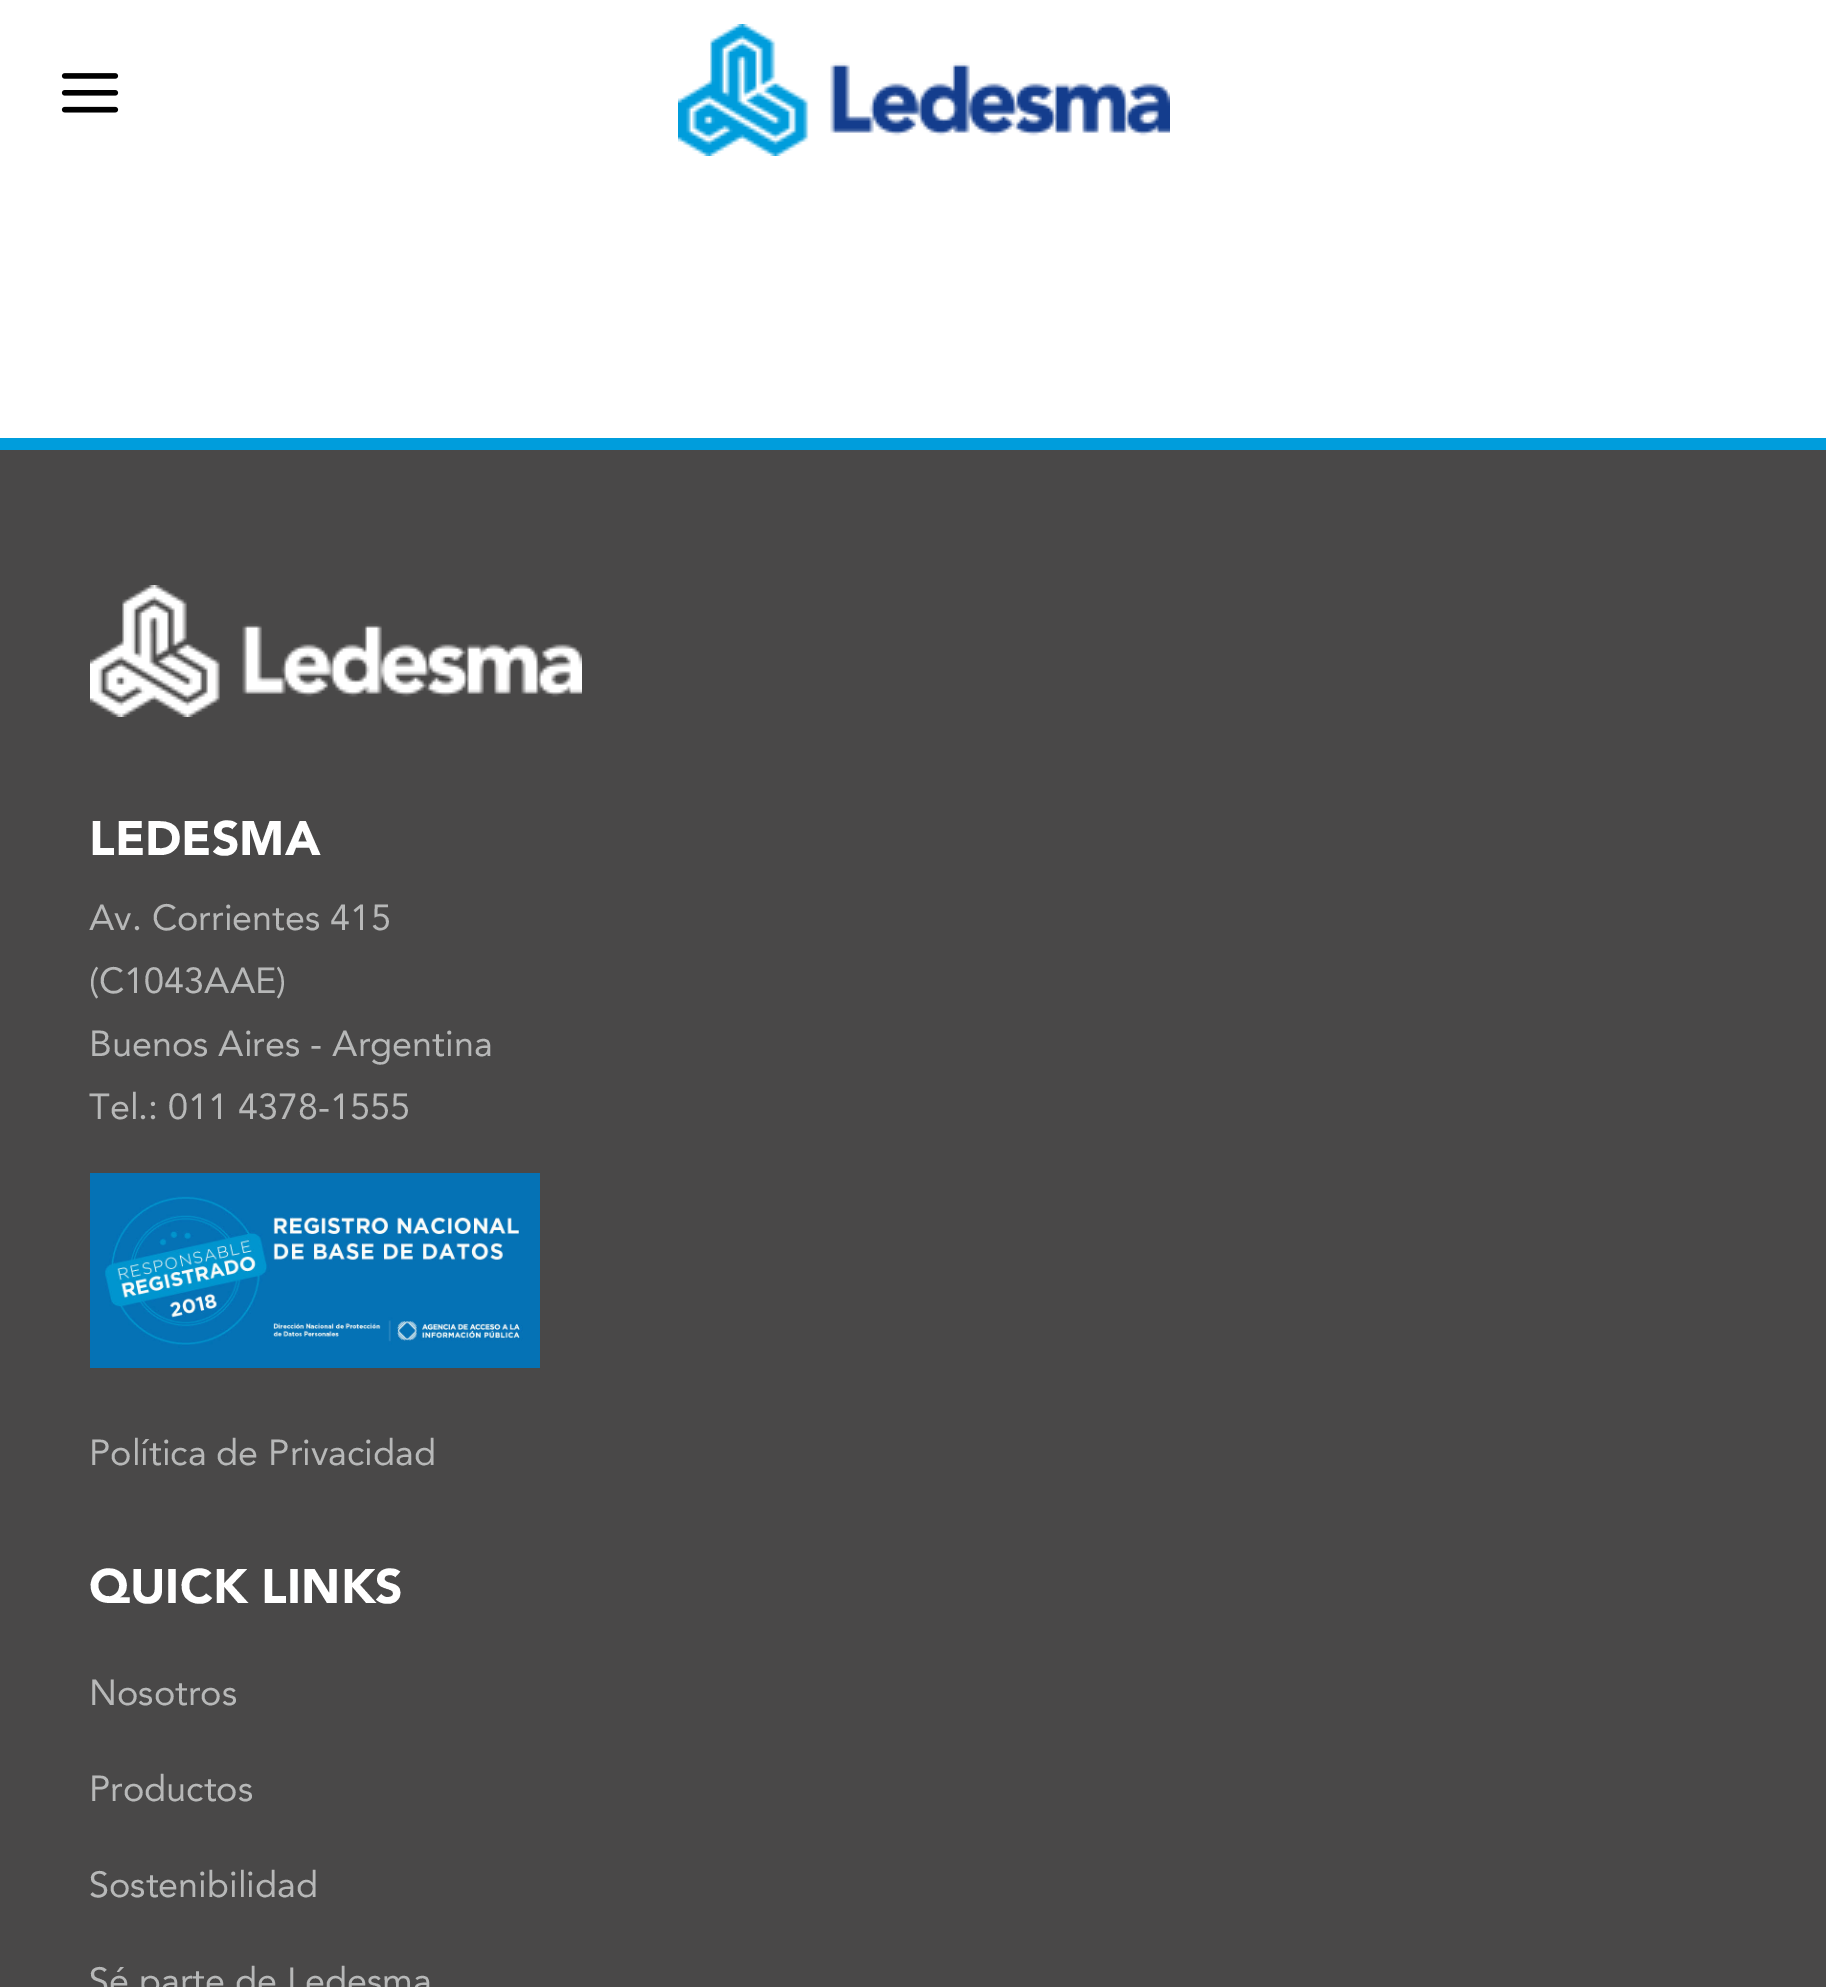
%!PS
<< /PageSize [1826 1987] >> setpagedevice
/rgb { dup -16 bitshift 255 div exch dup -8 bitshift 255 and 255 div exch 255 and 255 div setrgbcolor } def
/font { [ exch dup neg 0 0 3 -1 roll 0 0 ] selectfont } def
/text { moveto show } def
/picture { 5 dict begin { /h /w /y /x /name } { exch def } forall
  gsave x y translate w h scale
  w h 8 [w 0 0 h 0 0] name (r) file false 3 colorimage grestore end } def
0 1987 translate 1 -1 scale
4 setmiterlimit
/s1 { /Avenir-Black 48 font 16#FFFFFF rgb } def
/s2 { /Avenir-Regular 36 font 16#B7B8B8 rgb } def
16#FFFFFF rgb
0 0 1826 1987 rectfill
(pic1.raw) 61 73 58 40 picture
(pic2.raw) 678 24 492 132 picture
16#494848 rgb
0 450 1826 1537 rectfill
16#009DDC rgb
0 438 1826 12 rectfill
(pic3.raw) 90 585 492 132 picture
s1
(LEDESMA) 89 855 text
s2
(Av. Corrientes 415) 89 930 text
(\(C1043AAE\)) 89 993 text
(Buenos Aires - Argentina) 89 1056 text
(Tel.: 011 4378-1555) 89 1119 text
(pic4.raw) 90 1173 450 195 picture
(Política de Privacidad) 89 1465 text
s1
(QUICK LINKS) 89 1603 text
s2
(Nosotros) 89 1705 text
(Productos) 89 1801 text
(Sostenibilidad) 89 1897 text
(Sé parte de Ledesma) 89 1993 text
showpage
